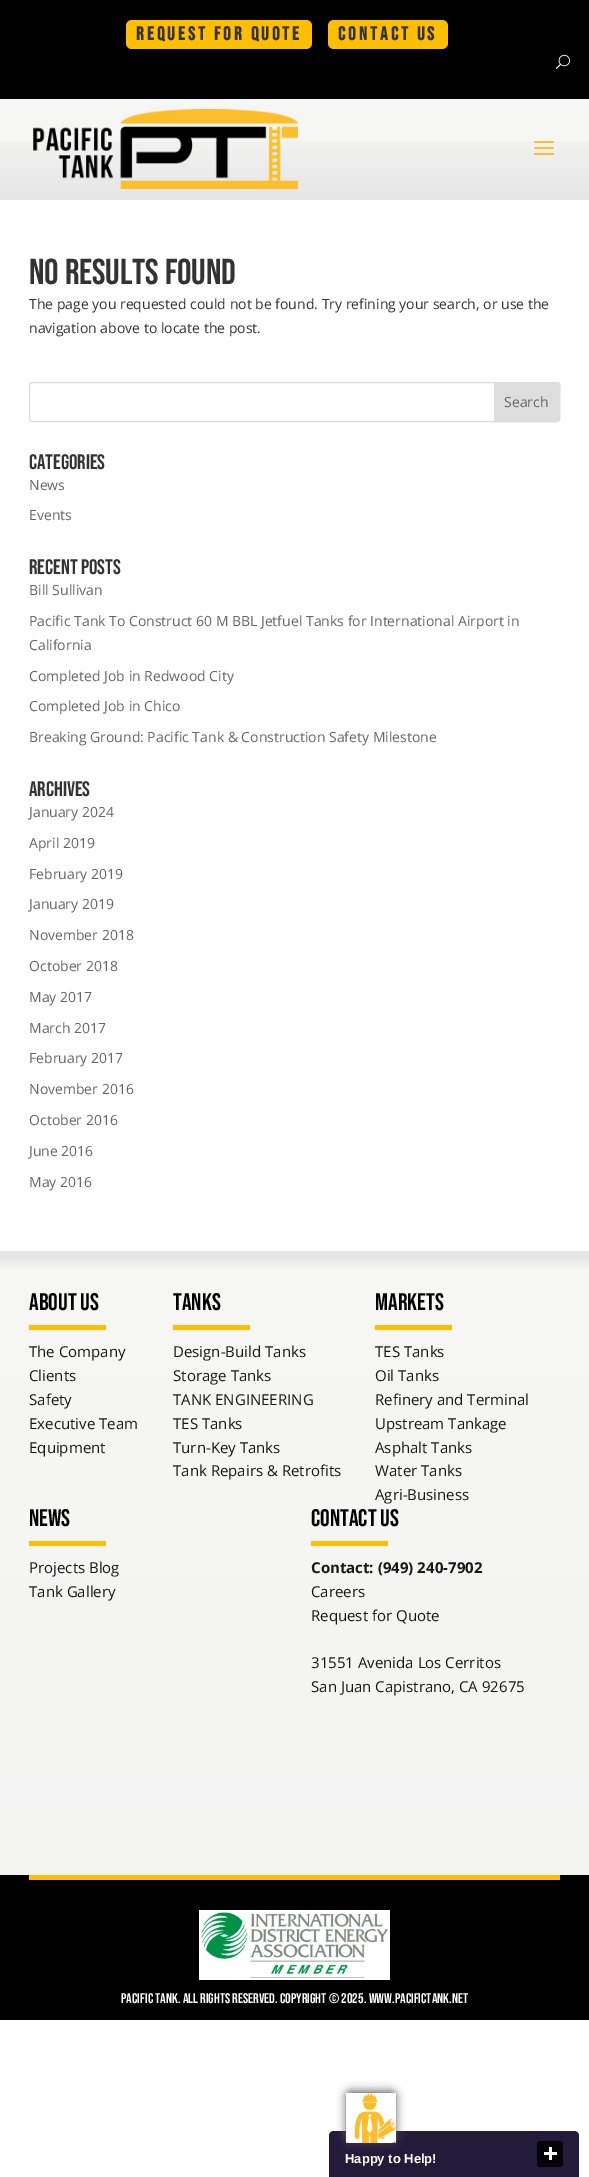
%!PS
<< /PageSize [589 2177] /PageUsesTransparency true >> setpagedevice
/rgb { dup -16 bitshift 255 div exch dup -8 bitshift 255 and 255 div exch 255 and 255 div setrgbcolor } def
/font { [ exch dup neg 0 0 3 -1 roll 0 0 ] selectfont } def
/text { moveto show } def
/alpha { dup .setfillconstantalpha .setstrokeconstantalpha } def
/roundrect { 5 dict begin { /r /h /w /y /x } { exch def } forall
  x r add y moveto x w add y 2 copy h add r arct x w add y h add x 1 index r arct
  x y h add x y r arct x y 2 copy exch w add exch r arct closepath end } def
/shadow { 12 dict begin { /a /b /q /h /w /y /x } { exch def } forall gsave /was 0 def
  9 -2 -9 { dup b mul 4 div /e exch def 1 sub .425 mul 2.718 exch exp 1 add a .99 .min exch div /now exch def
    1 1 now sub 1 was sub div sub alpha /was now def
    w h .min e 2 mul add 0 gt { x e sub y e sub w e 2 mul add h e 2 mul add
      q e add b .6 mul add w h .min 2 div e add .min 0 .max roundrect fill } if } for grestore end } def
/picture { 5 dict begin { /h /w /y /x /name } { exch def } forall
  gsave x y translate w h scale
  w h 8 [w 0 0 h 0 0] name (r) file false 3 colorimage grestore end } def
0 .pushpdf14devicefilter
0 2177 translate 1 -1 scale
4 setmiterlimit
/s1 { /BebasNeue-Regular 36 font 16#333333 rgb } def
/s2 { /OpenSans-Regular 14 font 16#333333 rgb } def
/s3 { /OpenSans-Regular 14 font 16#666666 rgb } def
/s4 { /BebasNeue-Regular 21 font 16#333333 rgb } def
/s5 { /BebasNeue-Regular 24 font 16#000000 rgb } def
/s6 { /OpenSans-Regular 15 font 16#171717 rgb } def
/s7 { /OpenSans-Bold 15 font 16#171717 rgb } def
/s8 { /BebasNeue-Regular 14 font 16#FFFFFF rgb } def
/s9 { /LiberationSans-Bold 13 font 16#FFFFFF rgb } def
16#FFFFFF rgb
0 0 589 2177 rectfill
16#E6E6E6 rgb
0 199 589 1 rectfill
16#F6F6F4 rgb
0 99 589 42 rectfill
(pic1.raw) 0 141 589 58 picture
16#000000 rgb
0 0 589 99 rectfill
16#FFBF00 rgb
126 20 186 29 6 roundrect fill
/BebasNeue-Bold 19 font
16#333333 rgb
136 40 moveto 3 0 (REQUEST FOR QUOTE) ashow
16#FFBF00 rgb
328 20 120 29 6 roundrect fill
16#333333 rgb
338 40 moveto 3 0 (CONTACT US) ashow
(pic2.raw) 556 54 14 15 picture
(pic3.raw) 33 109 265 80 picture
(pic4.raw) 534 141 20 14 picture
s1
(No Results Found) 29 284 text
s2
(The page you requested could not be found. Try refining your search, or use the) 29 309 text
(navigation above to locate the post.) 29 333 text
16#DDDDDD rgb
29.5 382.5 530 39 2.5 roundrect stroke
494.5 382.5 moveto 557 382.5 lineto 558.5 382.5 559.5 383.5 559.5 385 curveto 559.5 419 lineto 559.5 420.5 558.5 421.5 557 421.5 curveto 494.5 421.5 lineto closepath gsave fill grestore
stroke
s3
(Search) 504 407 text
s4
(Categories) 29 469 text
s3
(News) 29 490 text
(Events) 29 520 text
s4
(Recent Posts) 29 574 text
s3
(Bill Sullivan) 29 595 text
(Pacific Tank To Construct 60 M BBL Jetfuel Tanks for International Airport in) 29 626 text
(California) 29 650 text
(Completed Job in Redwood City) 29 681 text
(Completed Job in Chico) 29 711 text
(Breaking Ground: Pacific Tank & Construction Safety Milestone) 29 742 text
s4
(Archives) 29 796 text
s3
(January 2024) 29 817 text
(April 2019) 29 848 text
(February 2019) 29 879 text
(January 2019) 29 909 text
(November 2018) 29 940 text
(October 2018) 29 971 text
(May 2017) 29 1002 text
(March 2017) 29 1033 text
(February 2017) 29 1063 text
(November 2016) 29 1094 text
(October 2016) 29 1125 text
(June 2016) 29 1156 text
(May 2016) 29 1187 text
(pic5.raw) 0 1251 589 624 picture
s5
(About Us) 29 1310 text
16#FFBF00 rgb
29 1325 77 5 rectfill
s6
(The Company) 29 1357 text
(Clients) 29 1381 text
(Safety) 29 1405 text
(Executive Team) 29 1429 text
(Equipment) 29 1453 text
s5
(Tanks) 173 1310 text
16#FFBF00 rgb
173 1325 77 5 rectfill
s6
(Design-Build Tanks) 173 1357 text
(Storage Tanks) 173 1381 text
(TANK ENGINEERING) 173 1405 text
(TES Tanks) 173 1429 text
(Turn-Key Tanks) 173 1453 text
(Tank Repairs & Retrofits) 173 1476 text
s5
(Markets) 375 1310 text
16#FFBF00 rgb
375 1325 77 5 rectfill
s6
(TES Tanks) 375 1357 text
(Oil Tanks) 375 1381 text
(Refinery and Terminal) 375 1405 text
(Upstream Tankage) 375 1429 text
(Asphalt Tanks) 375 1453 text
(Water Tanks) 375 1476 text
(Agri-Business) 375 1500 text
s5
(News) 29 1526 text
16#FFBF00 rgb
29 1541 77 5 rectfill
s6
(Projects Blog) 29 1573 text
(Tank Gallery) 29 1597 text
s5
(Contact Us) 311 1526 text
16#FFBF00 rgb
311 1541 77 5 rectfill
s7
(Contact: \(949\) 240-7902) 311 1573 text
s6
(Careers) 311 1597 text
(Request for Quote) 311 1621 text
(31551 Avenida Los Cerritos) 311 1668 text
(San Juan Capistrano, CA 92675) 311 1692 text
16#000000 rgb
0 1875 589 145 rectfill
16#FFBF00 rgb
29 1875 531 5 rectfill
(pic6.raw) 199 1910 191 70 picture
s8
(Pacific Tank. All Rights Reserved. Copyright © 2025. www.pacifictank.net) 121 2003 text
16#241B3B rgb
334 2131 moveto 574 2131 lineto 577 2131 579 2133 579 2136 curveto 579 2177 lineto 329 2177 lineto 329 2136 lineto 329 2133 331 2131 334 2131 curveto closepath fill
16#5F5F5E rgb
346 2091 50 50 5 4.5 1 shadow
(pic7.raw) 346 2093 50 50 picture
(pic8.raw) 346 2093 50 50 picture
16#040307 rgb
537 2141 26 26 3 roundrect fill
(pic9.raw) 544 2147 13 13 picture
s9
(Happy to Help!) 345 2163 text
.poppdf14devicefilter showpage
